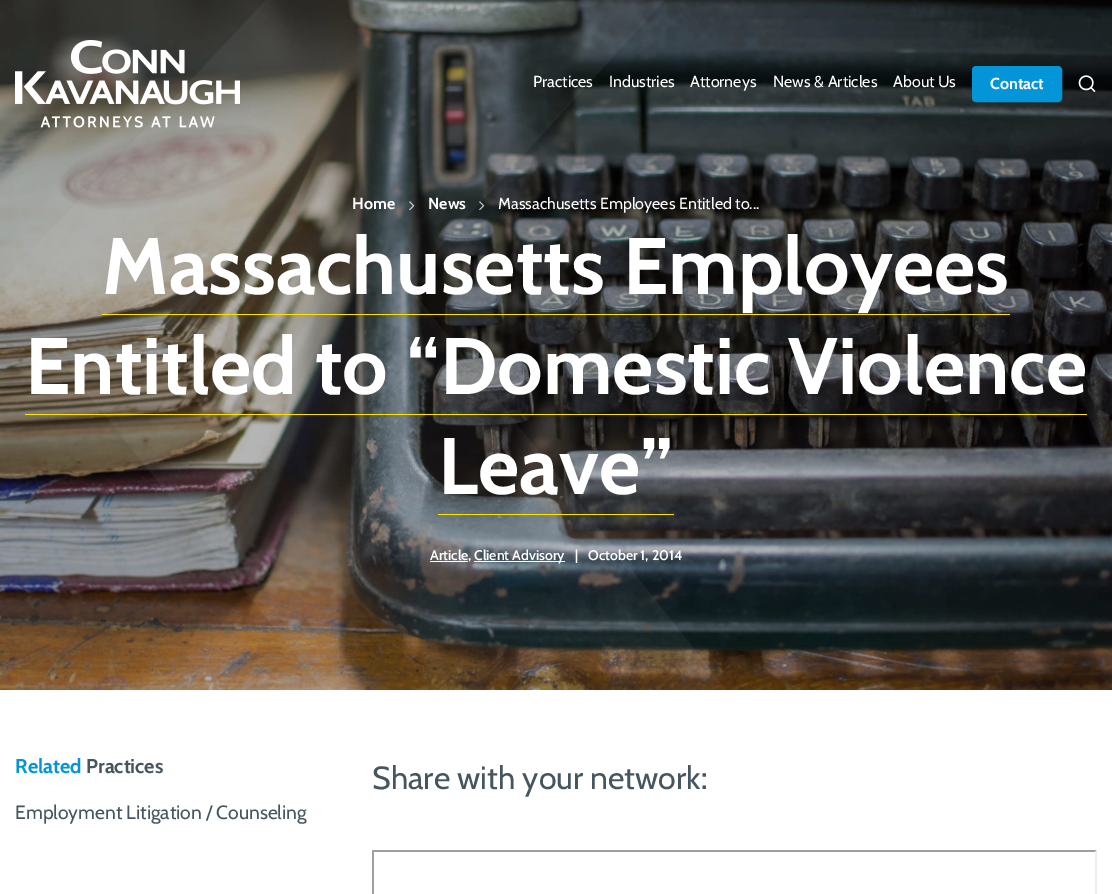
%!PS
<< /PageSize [1112 894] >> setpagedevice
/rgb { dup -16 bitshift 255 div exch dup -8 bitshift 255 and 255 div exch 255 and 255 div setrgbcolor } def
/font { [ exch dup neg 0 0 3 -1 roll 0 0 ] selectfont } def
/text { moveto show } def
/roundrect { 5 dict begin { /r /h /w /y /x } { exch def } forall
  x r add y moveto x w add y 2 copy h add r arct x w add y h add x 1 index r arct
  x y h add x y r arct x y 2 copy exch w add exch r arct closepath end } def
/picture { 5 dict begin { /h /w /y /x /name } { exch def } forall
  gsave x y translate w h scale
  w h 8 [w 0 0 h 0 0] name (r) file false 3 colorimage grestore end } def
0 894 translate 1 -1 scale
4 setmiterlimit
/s1 { /Cabin-Regular 16 font 16#FFFFFF rgb } def
/s2 { /Cabin-Bold 16 font 16#FFFFFF rgb } def
/s3 { /Cabin-Bold 80 font 16#FFFFFF rgb } def
/s4 { /Cabin-SemiBold 14 font 16#FFFFFF rgb } def
/s5 { /Cabin-Bold 20 font 16#0494D8 rgb } def
/s6 { /Cabin-Bold 20 font 16#45565F rgb } def
/s7 { /Cabin-Regular 19.25 font 16#45565F rgb } def
/s8 { /Cabin-Regular 32 font 16#45565F rgb } def
16#FFFFFF rgb
0 0 1112 894 rectfill
(pic3.raw) 0 0 1112 690 picture
(pic4.raw) 1 0 725 690 picture
(pic1.raw) 15 40 225 88 picture
s1
(Practices) 533 87 text
(Industries) 609 87 text
(Attorneys) 690 87 text
(News & Articles) 773 87 text
(About Us) 893 87 text
16#0494D8 rgb
973 67 88 34 3 roundrect gsave fill grestore
2 setlinewidth
stroke
s2
(Contact) 990 89 text
(pic2.raw) 1078 75 18 17 picture
(Home) 352 209 text
(pic5.raw) 409 201 6 10 picture
(News) 428 209 text
(pic6.raw) 479 201 6 10 picture
s1
(Massachusetts Employees Entitled to...) 498 209 text
s3
(Massachusetts Employees) 102 294 text
16#FDE200 rgb
102 314 908 1 rectfill
s3
(Entitled to “Domestic Violence) 25 394 text
16#FDE200 rgb
25 414 1062 1 rectfill
s3
(Leave”) 438 494 text
16#FDE200 rgb
438 514 236 1 rectfill
16#FFFFFF rgb
430 561 38 1 rectfill
s4
(Article,) 430 560 text
474 561 91 1 rectfill
(Client Advisory) 474 560 text
(|) 575 560 text
(October 1, 2014) 588 560 text
s5
(Related) 15 773 text
s6
(Practices) 86 773 text
s7
(Employment Litigation / Counseling) 15 819 text
s8
(Share with your network:) 372 789 text
16#9F9F9F rgb
372 850 moveto 1097 850 lineto 1095 852 lineto 374 852 lineto closepath fill
372 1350 moveto 372 850 lineto 374 852 lineto 374 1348 lineto closepath fill
16#EEEEEE rgb
1097 850 moveto 1097 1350 lineto 1095 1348 lineto 1095 852 lineto closepath fill
showpage
